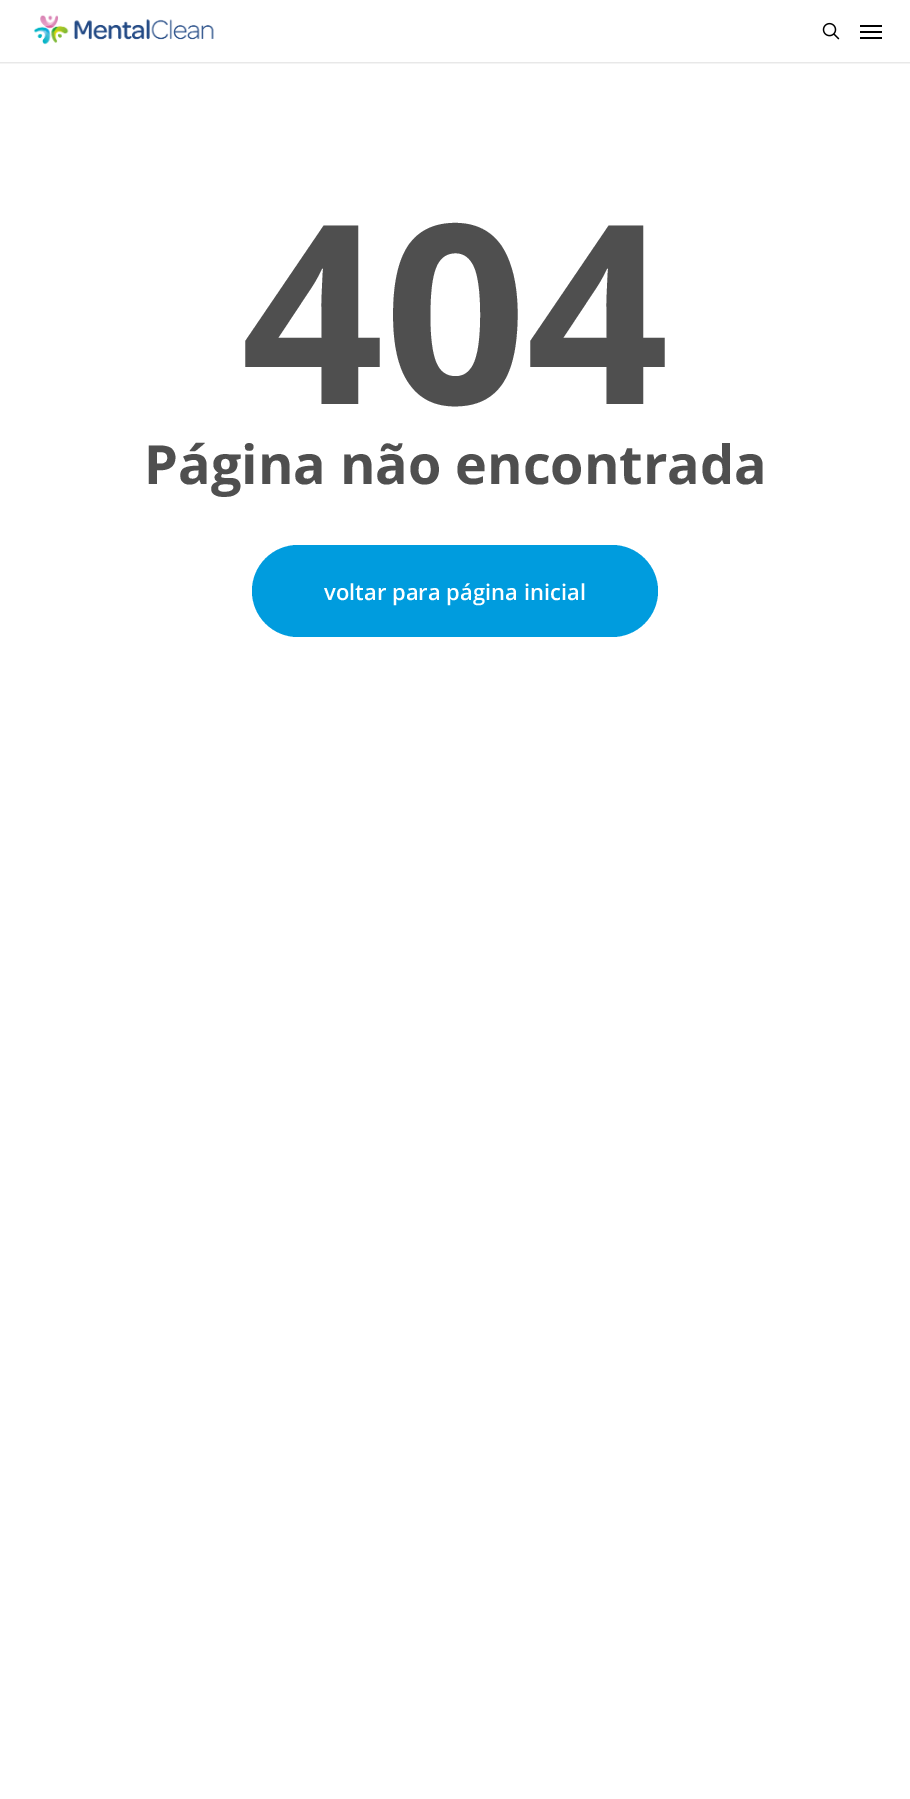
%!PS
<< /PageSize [910 1799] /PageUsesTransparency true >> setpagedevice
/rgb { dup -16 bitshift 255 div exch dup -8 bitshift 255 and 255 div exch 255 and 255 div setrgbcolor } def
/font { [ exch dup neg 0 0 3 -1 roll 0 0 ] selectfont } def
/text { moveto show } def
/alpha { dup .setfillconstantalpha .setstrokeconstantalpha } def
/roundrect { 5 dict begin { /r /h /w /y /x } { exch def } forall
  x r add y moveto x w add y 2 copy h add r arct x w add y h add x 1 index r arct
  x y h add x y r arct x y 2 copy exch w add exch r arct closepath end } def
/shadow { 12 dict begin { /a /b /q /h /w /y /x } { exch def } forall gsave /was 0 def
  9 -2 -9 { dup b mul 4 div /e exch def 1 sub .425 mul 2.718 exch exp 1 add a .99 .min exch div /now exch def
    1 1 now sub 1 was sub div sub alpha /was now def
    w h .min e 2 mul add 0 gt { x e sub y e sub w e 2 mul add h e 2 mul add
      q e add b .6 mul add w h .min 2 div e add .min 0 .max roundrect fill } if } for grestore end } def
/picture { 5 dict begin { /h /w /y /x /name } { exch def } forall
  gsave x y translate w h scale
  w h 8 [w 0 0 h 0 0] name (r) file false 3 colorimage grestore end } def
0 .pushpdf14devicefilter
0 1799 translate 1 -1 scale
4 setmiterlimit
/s1 { /OpenSans-Bold 250 font 16#4F4F4F rgb } def
/s2 { /OpenSans-Bold 54 font 16#4F4F4F rgb } def
/s3 { /OpenSans-SemiBold 22 font 16#FFFFFF rgb } def
16#FFFFFF rgb
0 0 910 1799 rectfill
gsave
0 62 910 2 rectclip
16#000000 rgb
0 0 910 62 0 1.5 0.22 shadow
grestore
(pic1.raw) 33 15 181 30 picture
(pic2.raw) 822 22 18 18 picture
16#000000 rgb
860 25 22 2 rectfill
860 37 22 2 rectfill
860 31 22 2 rectfill
s1
(404) 241 404 text
s2
(Página não encontrada) 144 484 text
16#009CDE rgb
252 545 406 92 46 roundrect fill
s3
(voltar para página inicial) 324 600 text
.poppdf14devicefilter showpage
